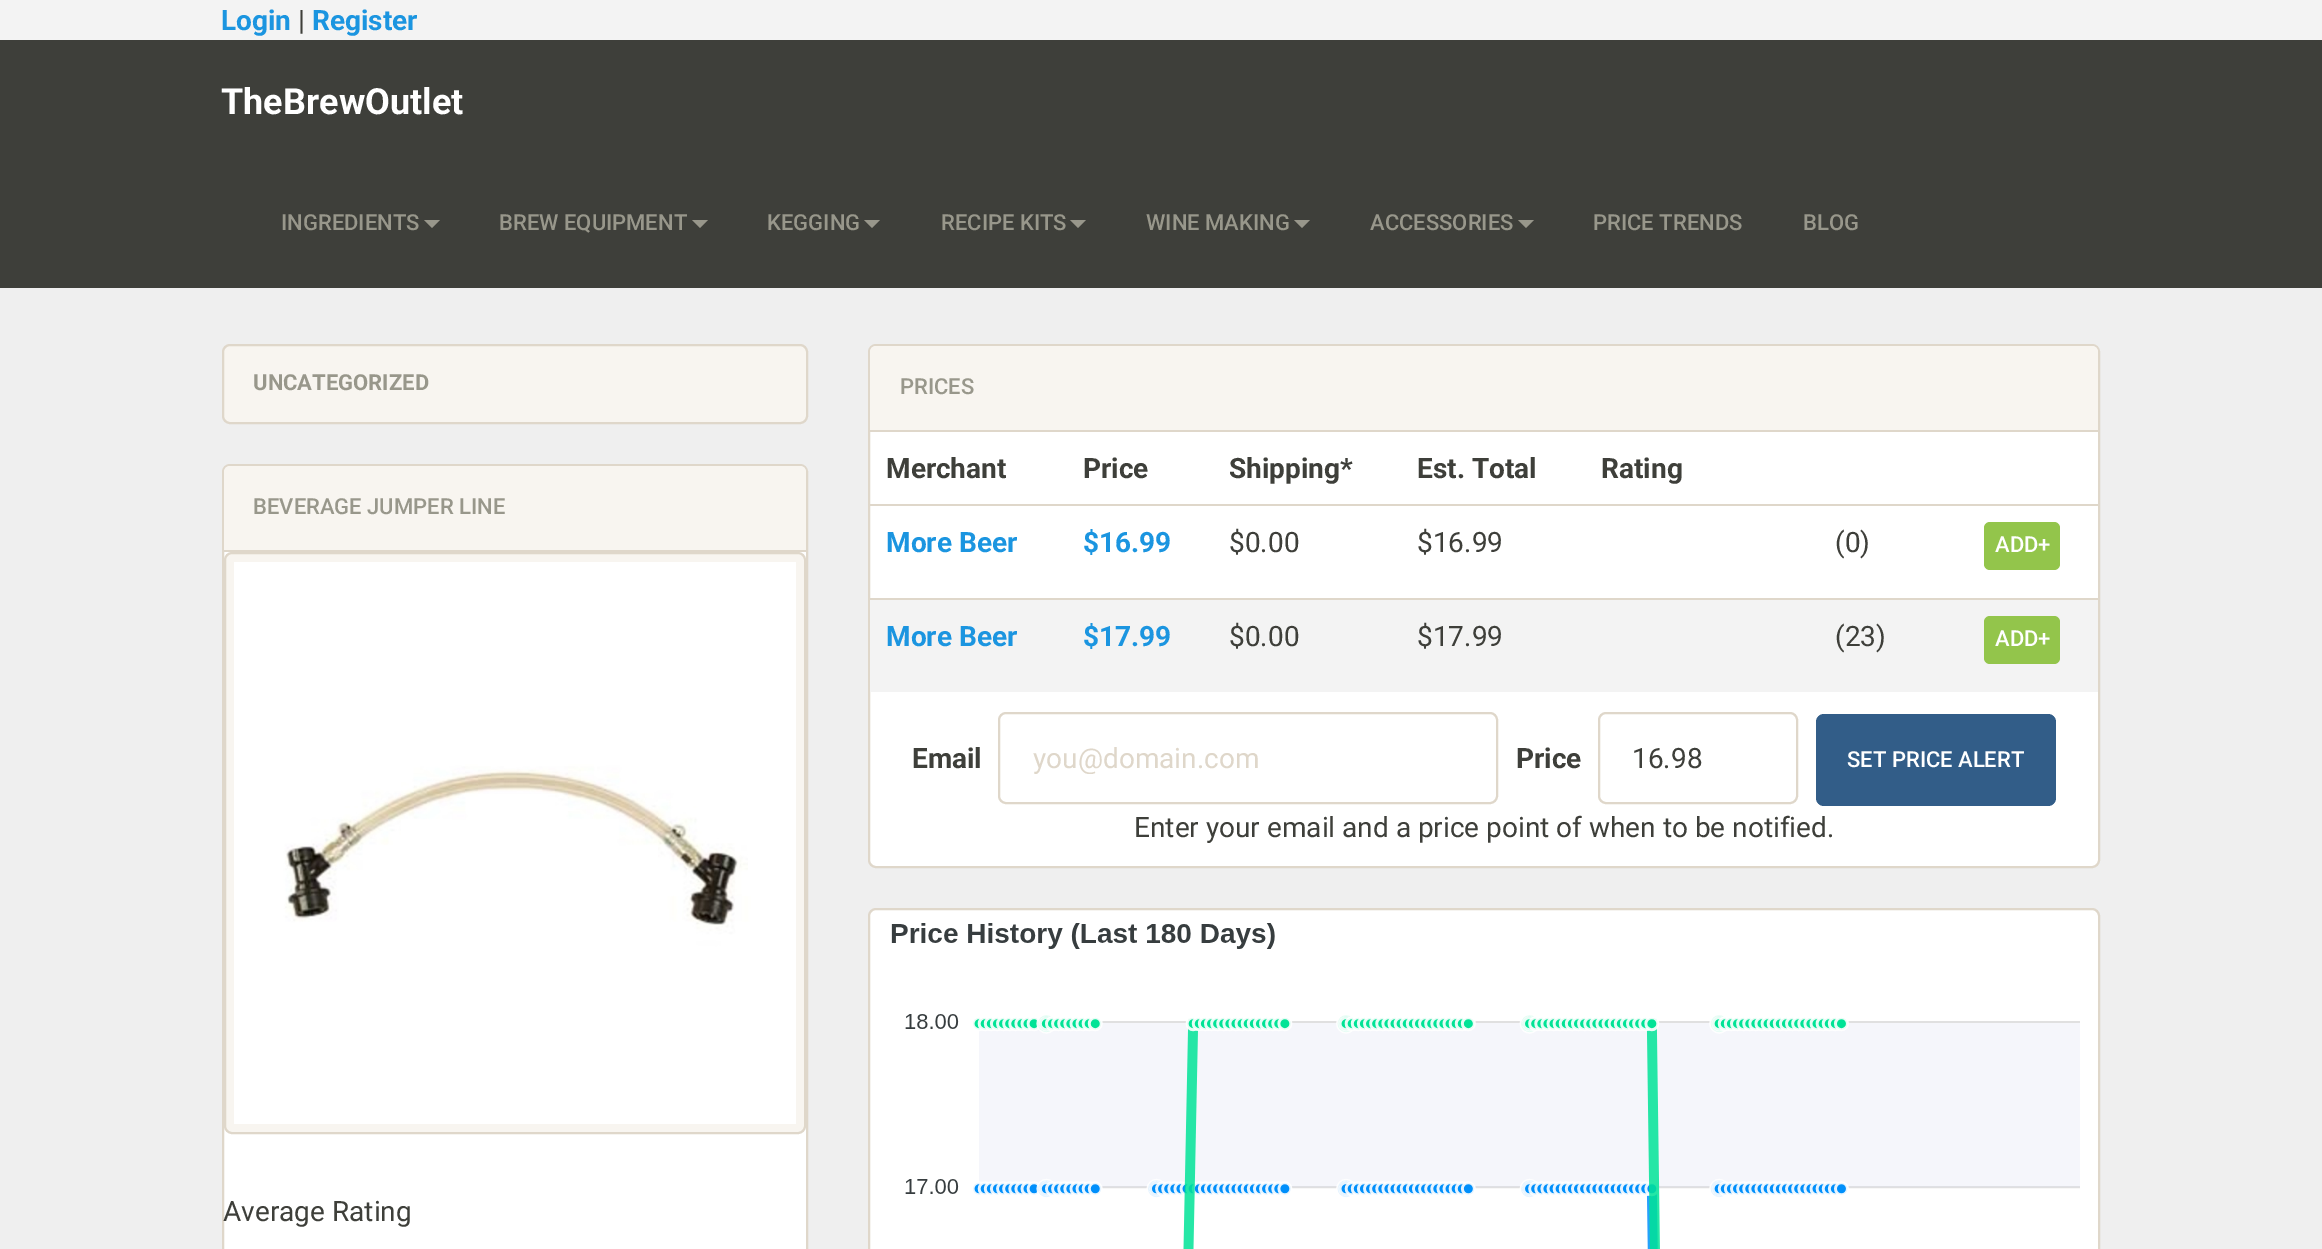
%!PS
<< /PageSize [2322 1249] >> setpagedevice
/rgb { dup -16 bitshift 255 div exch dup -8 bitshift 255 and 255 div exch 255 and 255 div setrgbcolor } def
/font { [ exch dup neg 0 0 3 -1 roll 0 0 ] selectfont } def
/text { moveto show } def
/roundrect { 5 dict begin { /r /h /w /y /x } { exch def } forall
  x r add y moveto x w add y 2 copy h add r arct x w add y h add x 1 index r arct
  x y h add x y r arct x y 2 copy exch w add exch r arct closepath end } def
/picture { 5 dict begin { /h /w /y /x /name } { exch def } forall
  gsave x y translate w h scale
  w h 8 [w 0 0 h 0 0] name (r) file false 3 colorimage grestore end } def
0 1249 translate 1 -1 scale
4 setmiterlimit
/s1 { /Roboto-Bold 28 font 16#1B95E0 rgb } def
/s2 { /Roboto-Regular 28 font 16#3E3F3A rgb } def
/s3 { /Roboto-Bold 36 font 16#FFFFFF rgb } def
/s4 { /Roboto-Medium 22 font 16#98978B rgb } def
/s5 { /Roboto-Bold 22 font 16#98978B rgb } def
/s6 { /Roboto-Bold 28 font 16#3E3F3A rgb } def
/s7 { /Roboto-Medium 22 font 16#FFFFFF rgb } def
/s8 { /Roboto-Regular 28 font 16#DFD7CA rgb } def
16#EFEFEF rgb
0 0 2322 1249 rectfill
16#F3F3F3 rgb
0 0 2322 40 rectfill
s1
(Login) 221 30 text
s2
(|) 298 30 text
s1
(Register) 312 30 text
16#3E3F3A rgb
0 40 2322 248 rectfill
s3
(TheBrewOutlet) 221 114 text
s4
(INGREDIENTS) 281 230 text
424 220 moveto 440 220 lineto 432 228 lineto closepath fill
(BREW EQUIPMENT) 499 230 text
692 220 moveto 708 220 lineto 700 228 lineto closepath fill
(KEGGING) 767 230 text
864 220 moveto 880 220 lineto 872 228 lineto closepath fill
(RECIPE KITS) 941 230 text
1070 220 moveto 1086 220 lineto 1078 228 lineto closepath fill
(WINE MAKING) 1146 230 text
1294 220 moveto 1310 220 lineto 1302 228 lineto closepath fill
(ACCESSORIES) 1370 230 text
1518 220 moveto 1534 220 lineto 1526 228 lineto closepath fill
(PRICE TRENDS) 1593 230 text
(BLOG) 1803 230 text
16#F8F5F0 rgb
223 345 584 78 7 roundrect gsave fill grestore
16#DFD7CA rgb
2 setlinewidth
stroke
s5
(UNCATEGORIZED) 253 390 text
16#FFFFFF rgb
223 465 584 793 7 roundrect gsave fill grestore
16#DFD7CA rgb
stroke
16#F8F5F0 rgb
230 466 moveto 800 466 lineto 803.5 466 806 468.5 806 472 curveto 806 552 lineto 224 552 lineto 224 472 lineto 224 468.5 226.5 466 230 466 curveto closepath fill
16#DFD7CA rgb
224 550 582 2 rectfill
s4
(BEVERAGE JUMPER LINE) 253 514 text
16#F8F5F0 rgb
225 553 580 580 7 roundrect gsave fill grestore
16#DFD7CA rgb
stroke
(pic1.raw) 234 562 562 562 picture
s2
(Average Rating) 223 1221 text
16#FFFFFF rgb
869 345 1230 522 7 roundrect gsave fill grestore
16#DFD7CA rgb
stroke
16#F8F5F0 rgb
876 346 moveto 2092 346 lineto 2095.5 346 2098 348.5 2098 352 curveto 2098 432 lineto 870 432 lineto 870 352 lineto 870 348.5 872.5 346 876 346 curveto closepath fill
16#DFD7CA rgb
870 430 1228 2 rectfill
s4
(PRICES) 900 394 text
s6
(Merchant) 886 478 text
(Price) 1083 478 text
(Shipping*) 1229 478 text
(Est. Total) 1417 478 text
(Rating) 1601 478 text
s1
(More Beer) 886 552 text
($16.99) 1083 552 text
s2
($0.00) 1229 552 text
($16.99) 1417 552 text
(\(0\)) 1835 552 text
16#DFD7CA rgb
868 504 1232 2 rectfill
16#93C54B rgb
1984 522 76 48 6 roundrect fill
s7
(ADD+) 1995 552 text
16#F3F3F3 rgb
870 600 1228 92 rectfill
s1
(More Beer) 886 646 text
($17.99) 1083 646 text
s2
($0.00) 1229 646 text
($17.99) 1417 646 text
(\(23\)) 1835 646 text
16#DFD7CA rgb
868 598 1232 2 rectfill
16#93C54B rgb
1984 616 76 48 6 roundrect fill
s7
(ADD+) 1995 646 text
s6
(Email) 912 768 text
16#DFD7CA rgb
999 713 498 90 7 roundrect stroke
gsave
1032 742 432 32 rectclip
s8
(you@domain.com) 1033 768 text
grestore
s6
(Price) 1516 768 text
16#DFD7CA rgb
1599 713 198 90 7 roundrect stroke
s2
(16.98) 1632 768 text
16#325D88 rgb
1816 714 240 92 8 roundrect fill
s7
(SET PRICE ALERT) 1847 767 text
s2
(Enter your email and a price point of when to be notified.) 1134 837 text
16#FFFFFF rgb
869 909 1230 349 7 roundrect gsave fill grestore
16#DFD7CA rgb
stroke
(pic2.raw) 891 923 1189 326 picture
showpage
